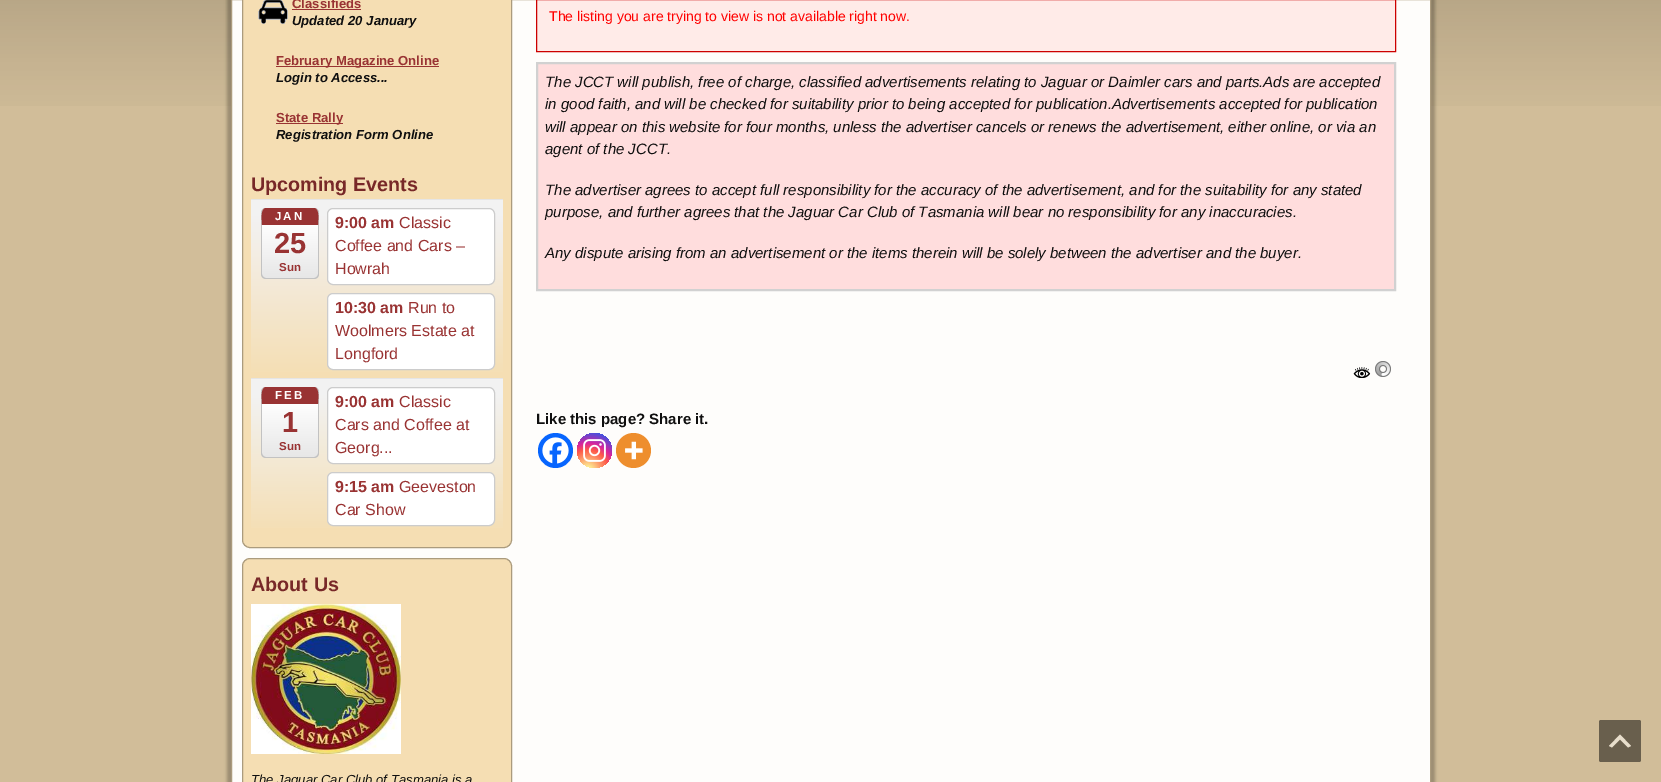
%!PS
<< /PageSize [1661 782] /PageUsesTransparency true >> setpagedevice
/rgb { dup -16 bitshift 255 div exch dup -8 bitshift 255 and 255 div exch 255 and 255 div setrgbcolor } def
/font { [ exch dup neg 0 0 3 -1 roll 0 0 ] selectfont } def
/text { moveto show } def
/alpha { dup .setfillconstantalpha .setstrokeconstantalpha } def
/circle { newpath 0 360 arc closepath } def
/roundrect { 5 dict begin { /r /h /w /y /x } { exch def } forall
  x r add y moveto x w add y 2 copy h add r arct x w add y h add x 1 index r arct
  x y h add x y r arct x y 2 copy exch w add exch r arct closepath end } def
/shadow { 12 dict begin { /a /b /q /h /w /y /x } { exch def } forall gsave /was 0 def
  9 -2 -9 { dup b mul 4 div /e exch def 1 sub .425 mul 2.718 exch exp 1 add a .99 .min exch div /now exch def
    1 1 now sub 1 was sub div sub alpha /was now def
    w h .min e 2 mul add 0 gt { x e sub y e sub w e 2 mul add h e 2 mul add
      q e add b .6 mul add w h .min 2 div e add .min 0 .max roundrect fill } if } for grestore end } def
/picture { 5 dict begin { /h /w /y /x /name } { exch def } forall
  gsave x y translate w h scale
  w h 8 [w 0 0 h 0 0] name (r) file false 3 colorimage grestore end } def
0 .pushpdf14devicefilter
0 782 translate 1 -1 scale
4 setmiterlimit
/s1 { /LiberationSans-Bold 13.1 font 16#993333 rgb } def
/s2 { /LiberationSans-BoldItalic 13.1 font 16#0F0F0F rgb } def
/s3 { /LiberationSans-Bold 19.75 font 16#782828 rgb } def
/s4 { /LiberationSans-Bold 29 font 16#993333 rgb } def
/s5 { /LiberationSans-Bold 11.5 font 16#993333 rgb } def
/s6 { /LiberationSans-Bold 16 font 16#993333 rgb } def
/s7 { /LiberationSans-Regular 16 font 16#993333 rgb } def
/s8 { /LiberationSans-Italic 13.1 font 16#0F0F0F rgb } def
/s9 { /LiberationSans-Regular 14 font 16#FF0000 rgb } def
/s10 { /LiberationSans-Italic 15 font 16#0F0F0F rgb } def
/s11 { /LiberationSans-Bold 15 font 16#0F0F0F rgb } def
16#D1BD99 rgb
0 0 1661 782 rectfill
(pic1.raw) 0 0 1661 106 picture
16#000000 rgb
227 -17 1208 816 12 1.5 0.25 shadow
16#FEFDFB rgb
231.5 -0.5 moveto 1430.5 -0.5 lineto 1430.5 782.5 lineto 231.5 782.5 lineto closepath gsave fill grestore
16#AB9B7D rgb
stroke
16#F5DEB3 rgb
242.5 -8.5 269 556 7.5 roundrect gsave fill grestore
16#AB9B7D rgb
stroke
(pic2.raw) 258 0 30 24 picture
s1
(Classifieds) 292 8 text
292 9 69 1 rectfill
s2
(Updated 20 January) 292 25 text
16#993333 rgb
276 66 163 1 rectfill
s1
(February Magazine Online) 276 65 text
s2
(Login to Access...) 276 82 text
16#993333 rgb
276 123 67 1 rectfill
s1
(State Rally) 276 122 text
s2
(Registration Form Online) 276 139 text
s3
(Upcoming Events) 251 191 text
gsave 251 200 moveto 503 200 lineto 503 372 lineto 251 372 lineto closepath clip newpath
<< /ShadingType 2 /ColorSpace /DeviceRGB /Coords [377 200 377 378] /Extend [true true] /Function << /FunctionType 3 /Domain [0 1] /Functions [<< /FunctionType 2 /Domain [0 1] /C0 [0.949 0.949 0.949] /C1 [0.949 0.949 0.949] /N 1 >> << /FunctionType 2 /Domain [0 1] /C0 [0.949 0.949 0.949] /C1 [0.961 0.871 0.702] /N 1 >>] /Bounds [0.09] /Encode [0 1 0 1] >> >> shfill grestore
16#E5E5E5 rgb
251 199 252 1 rectfill
gsave
261 208 58 71 5 roundrect clip newpath
gsave 262 208 moveto 318 208 lineto 318 278 lineto 262 278 lineto closepath clip newpath
<< /ShadingType 2 /ColorSpace /DeviceRGB /Coords [290 208 290 278] /Extend [true true] /Function << /FunctionType 3 /Domain [0 1] /Functions [<< /FunctionType 2 /Domain [0 1] /C0 [1 1 1] /C1 [1 1 1] /N 1 >> << /FunctionType 2 /Domain [0 1] /C0 [1 1 1] /C1 [0.906 0.906 0.906] /N 1 >>] /Bounds [0.21] /Encode [0 1 0 1] >> >> shfill grestore
grestore
16#C2C2C2 rgb
266 208 moveto 314 208 lineto 317 208 319 210 319 213 curveto 319 274 lineto 319 277 317 279 314 279 curveto 266 279 lineto 263 279 261 277 261 274 curveto 261 213 lineto 261 210 263 208 266 208 curveto closepath 266 208 moveto 314 208 lineto 316 208 318 210 318 213 curveto 318 274 lineto 318 276 316 278 314 278 curveto 266 278 lineto 264 278 262 276 262 274 curveto 262 213 lineto 262 210 264 208 266 208 curveto closepath eofill
16#993333 rgb
266 208 moveto 260 208 262 221 262 225 curveto 318 225 lineto 318 221 320 208 314 208 curveto closepath fill
/LiberationSans-Bold 11.5 font
16#FFFFFF rgb
275 220 moveto 2 0 (JAN) ashow
s4
(25) 274 253 text
s5
(Sun) 279 271 text
16#FFFFFF rgb
327.5 208.5 167 76 5.5 roundrect gsave fill grestore
16#CCCCCC rgb
stroke
s6
(9:00 am) 335 228 text
s7
(Classic) 399 228 text
(Coffee and Cars –) 335 251 text
(Howrah) 335 274 text
16#FFFFFF rgb
327.5 293.5 167 76 5.5 roundrect gsave fill grestore
16#CCCCCC rgb
stroke
s6
(10:30 am) 335 313 text
s7
(Run to) 408 313 text
(Woolmers Estate at) 335 336 text
(Longford) 335 359 text
gsave 251 379 moveto 503 379 lineto 503 528 lineto 251 528 lineto closepath clip newpath
<< /ShadingType 2 /ColorSpace /DeviceRGB /Coords [377 379 377 534] /Extend [true true] /Function << /FunctionType 3 /Domain [0 1] /Functions [<< /FunctionType 2 /Domain [0 1] /C0 [0.949 0.949 0.949] /C1 [0.949 0.949 0.949] /N 1 >> << /FunctionType 2 /Domain [0 1] /C0 [0.949 0.949 0.949] /C1 [0.961 0.871 0.702] /N 1 >>] /Bounds [0.1] /Encode [0 1 0 1] >> >> shfill grestore
16#E5E5E5 rgb
251 378 252 1 rectfill
gsave
261 387 58 71 5 roundrect clip newpath
gsave 262 387 moveto 318 387 lineto 318 457 lineto 262 457 lineto closepath clip newpath
<< /ShadingType 2 /ColorSpace /DeviceRGB /Coords [290 387 290 457] /Extend [true true] /Function << /FunctionType 3 /Domain [0 1] /Functions [<< /FunctionType 2 /Domain [0 1] /C0 [1 1 1] /C1 [1 1 1] /N 1 >> << /FunctionType 2 /Domain [0 1] /C0 [1 1 1] /C1 [0.906 0.906 0.906] /N 1 >>] /Bounds [0.21] /Encode [0 1 0 1] >> >> shfill grestore
grestore
16#C2C2C2 rgb
266 387 moveto 314 387 lineto 317 387 319 389 319 392 curveto 319 453 lineto 319 456 317 458 314 458 curveto 266 458 lineto 263 458 261 456 261 453 curveto 261 392 lineto 261 389 263 387 266 387 curveto closepath 266 387 moveto 314 387 lineto 316 387 318 389 318 392 curveto 318 453 lineto 318 455 316 457 314 457 curveto 266 457 lineto 264 457 262 455 262 453 curveto 262 392 lineto 262 389 264 387 266 387 curveto closepath eofill
16#993333 rgb
266 387 moveto 260 387 262 400 262 404 curveto 318 404 lineto 318 400 320 387 314 387 curveto closepath fill
/LiberationSans-Bold 11.5 font
16#FFFFFF rgb
275 399 moveto 2 0 (FEB) ashow
s4
(1) 282 432 text
s5
(Sun) 279 450 text
16#FFFFFF rgb
327.5 387.5 167 76 5.5 roundrect gsave fill grestore
16#CCCCCC rgb
stroke
s6
(9:00 am) 335 407 text
s7
(Classic) 399 407 text
(Cars and Coffee at) 335 430 text
(Georg...) 335 453 text
16#FFFFFF rgb
327.5 472.5 167 53 5.5 roundrect gsave fill grestore
16#CCCCCC rgb
stroke
s6
(9:15 am) 335 492 text
s7
(Geeveston) 399 492 text
(Car Show) 335 515 text
16#F5DEB3 rgb
242.5 558.5 269 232 7.5 roundrect gsave fill grestore
16#AB9B7D rgb
stroke
s3
(About Us) 251 591 text
(pic3.raw) 251 604 150 150 picture
s8
(The Jaguar Car Club of Tasmania is a) 251 784 text
16#FFEBE8 rgb
536.5 -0.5 moveto 1395.5 -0.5 lineto 1395.5 51.5 lineto 536.5 51.5 lineto closepath gsave fill grestore
16#CC0000 rgb
stroke
s9
(The listing you are trying to view is not available right now.) 549 21 text
16#FFDDDD rgb
538 64 856 225 rectfill
16#D1D1D1 rgb
536.5 62.5 859 228 rectstroke
537.5 63.5 857 226 rectstroke
s10
(The JCCT will publish, free of charge, classified advertisements relating to Jaguar or Daimler cars and parts.Ads are accepted) 545 87 text
(in good faith, and will be checked for suitability prior to being accepted for publication.Advertisements accepted for publication) 545 109 text
(will appear on this website for four months, unless the advertiser cancels or renews the advertisement, either online, or via an) 545 132 text
(agent of the JCCT.) 545 154 text
(The advertiser agrees to accept full responsibility for the accuracy of the advertisement, and for the suitability for any stated) 545 195 text
(purpose, and further agrees that the Jaguar Car Club of Tasmania will bear no responsibility for any inaccuracies.) 545 217 text
(Any dispute arising from an advertisement or the items therein will be solely between the advertiser and the buyer.) 545 258 text
(pic4.raw) 1353 367 18 11 picture
(pic5.raw) 1375 361 16 16 picture
s11
(Like this page? Share it.) 536 424 text
16#0765FE rgb
555.5 450.5 17.5 circle fill
(pic6.raw) 542 437 27 27 picture
gsave 594.5 450.5 17.5 circle clip newpath 588 470 translate 45 45 scale
<< /ShadingType 3 /ColorSpace /DeviceRGB /Coords [0 0 0 0 0 1] /Extend [true true] /Function << /FunctionType 3 /Domain [0 1] /Functions [<< /FunctionType 2 /Domain [0 1] /C0 [0.992 0.957 0.592] /C1 [0.992 0.957 0.592] /N 1 >> << /FunctionType 2 /Domain [0 1] /C0 [0.992 0.957 0.592] /C1 [0.992 0.349 0.286] /N 1 >> << /FunctionType 2 /Domain [0 1] /C0 [0.992 0.349 0.286] /C1 [0.839 0.141 0.624] /N 1 >> << /FunctionType 2 /Domain [0 1] /C0 [0.839 0.141 0.624] /C1 [0.157 0.353 0.922] /N 1 >> << /FunctionType 2 /Domain [0 1] /C0 [0.157 0.353 0.922] /C1 [0.157 0.353 0.922] /N 1 >>] /Bounds [0.05 0.45 0.6 0.9] /Encode [0 1 0 1 0 1 0 1 0 1] >> >> shfill grestore
(pic7.raw) 583 439 23 23 picture
16#EE8E2D rgb
633.5 450.5 17.5 circle fill
(pic8.raw) 625 441 18 19 picture
16#695F4D rgb
1599 720 42 42 2 roundrect fill
16#E8DECC rgb
1628 747.5 moveto 1620 739.5 lineto 1612 747.5 lineto 1609 746 lineto 1620 734.5 lineto 1631 746 lineto closepath fill
.poppdf14devicefilter showpage
